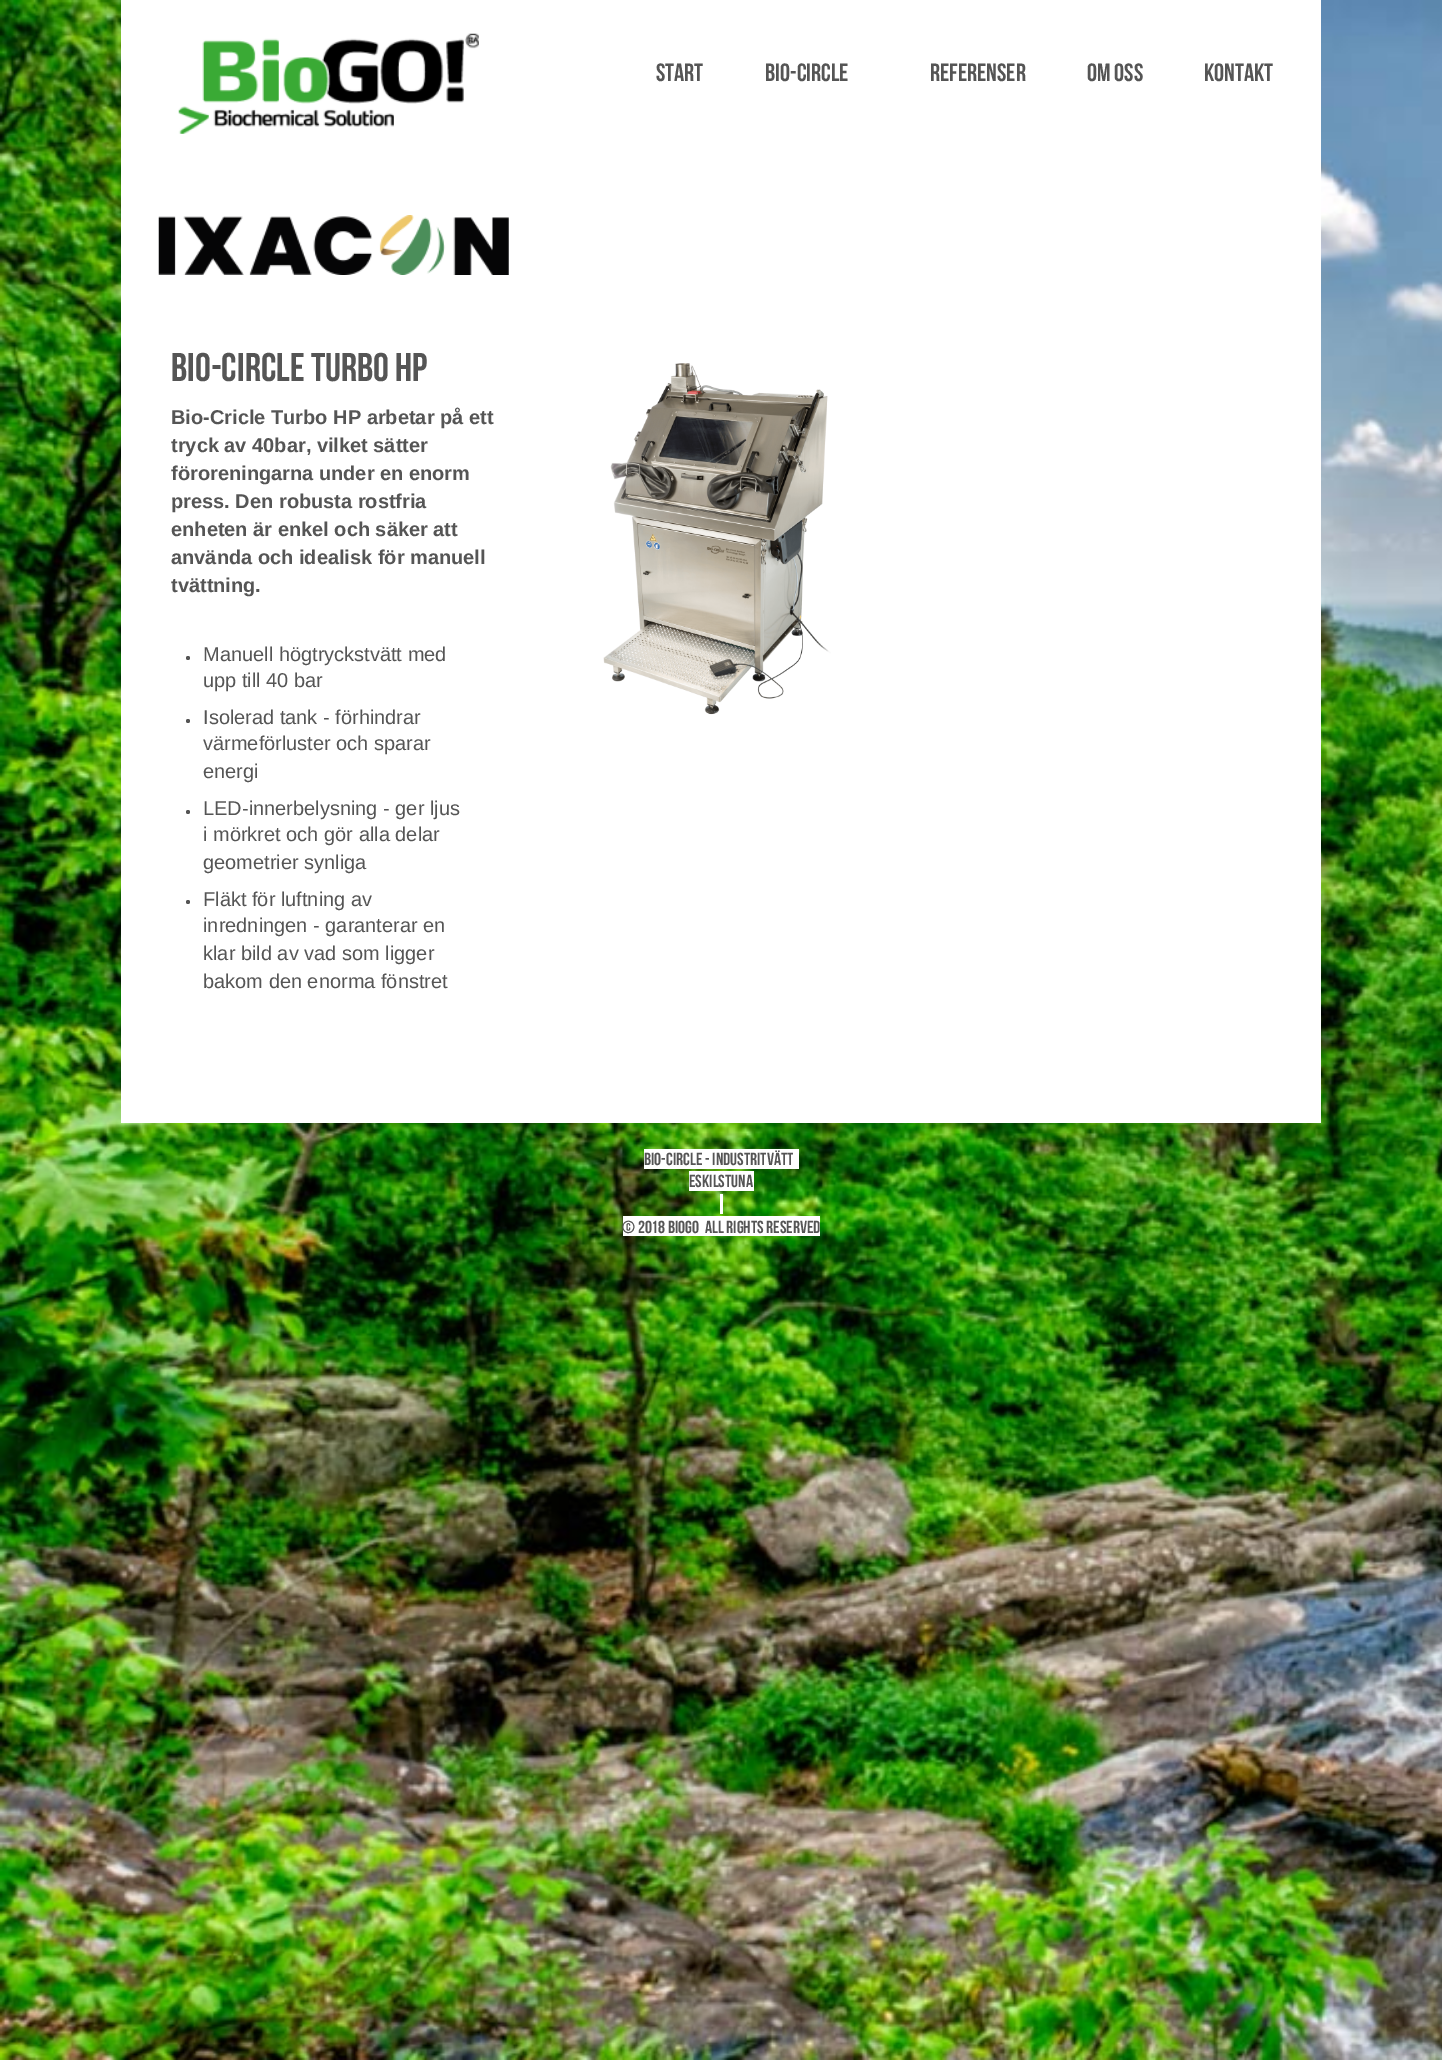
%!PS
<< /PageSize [1442 2060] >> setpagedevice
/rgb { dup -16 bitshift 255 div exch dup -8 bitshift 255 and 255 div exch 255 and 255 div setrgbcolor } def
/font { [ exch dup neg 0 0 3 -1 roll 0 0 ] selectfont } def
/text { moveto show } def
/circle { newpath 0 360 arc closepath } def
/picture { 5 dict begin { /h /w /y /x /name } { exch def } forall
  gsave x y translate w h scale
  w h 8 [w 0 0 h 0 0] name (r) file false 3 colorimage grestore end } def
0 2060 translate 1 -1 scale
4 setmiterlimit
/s1 { /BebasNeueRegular-Regular 25 font 16#555555 rgb } def
/s2 { /BebasNeueRegular-Regular 40 font 16#555555 rgb } def
/s3 { /LiberationSans-Bold 20 font 16#555555 rgb } def
/s4 { /LiberationSans-Regular 20 font 16#555555 rgb } def
/s5 { /BebasNeueRegular-Regular 17.5 font 16#555555 rgb } def
16#FFFFFF rgb
0 0 1442 2060 rectfill
(pic1.raw) 0 0 1442 2060 picture
121 0 1200 1123 rectfill
(pic2.raw) 178 33 301 101 picture
s1
(START) 656 81 text
(Bio-Circle) 765 81 text
(REFERENSER) 930 81 text
(OM OSS) 1087 81 text
(KONTAKT) 1204 81 text
(pic3.raw) 158 215 351 60 picture
s2
(BIO-CIRCLE TURBO HP) 171 381 text
s3
(Bio-Cricle Turbo HP arbetar på ett) 171 424 text
(tryck av 40bar, vilket sätter) 171 452 text
(föroreningarna under en enorm) 171 480 text
(press. Den robusta rostfria) 171 508 text
(enheten är enkel och säker att) 171 536 text
(använda och idealisk för manuell) 171 564 text
(tvättning.) 171 592 text
188 658 2 circle fill
s4
(Manuell högtryckstvätt med) 203 661 text
(upp till 40 bar) 203 687 text
188 721 2 circle fill
(Isolerad tank - förhindrar) 203 724 text
(värmeförluster och sparar) 203 750 text
(energi) 203 778 text
188 812 2 circle fill
(LED-innerbelysning - ger ljus) 203 815 text
(i mörkret och gör alla delar) 203 841 text
(geometrier synliga) 203 869 text
188 902 2 circle fill
(Fläkt för luftning av) 203 906 text
(inredningen - garanterar en) 203 932 text
(klar bild av vad som ligger) 203 960 text
(bakom den enorma fönstret) 203 988 text
(pic4.raw) 603 363 228 352 picture
16#FFFFFF rgb
644 1149 155 20 rectfill
s5
(BIO-CIRCLE - INDUSTRITVÄTT) 644 1165 text
16#FFFFFF rgb
689 1171 65 20 rectfill
s5
(ESKILSTUNA) 689 1187 text
16#FFFFFF rgb
720 1194 3 20 rectfill
623 1216 197 20 rectfill
s5
(© 2018 BIOGO  ALL RIGHTS RESERVED) 622 1233 text
showpage
